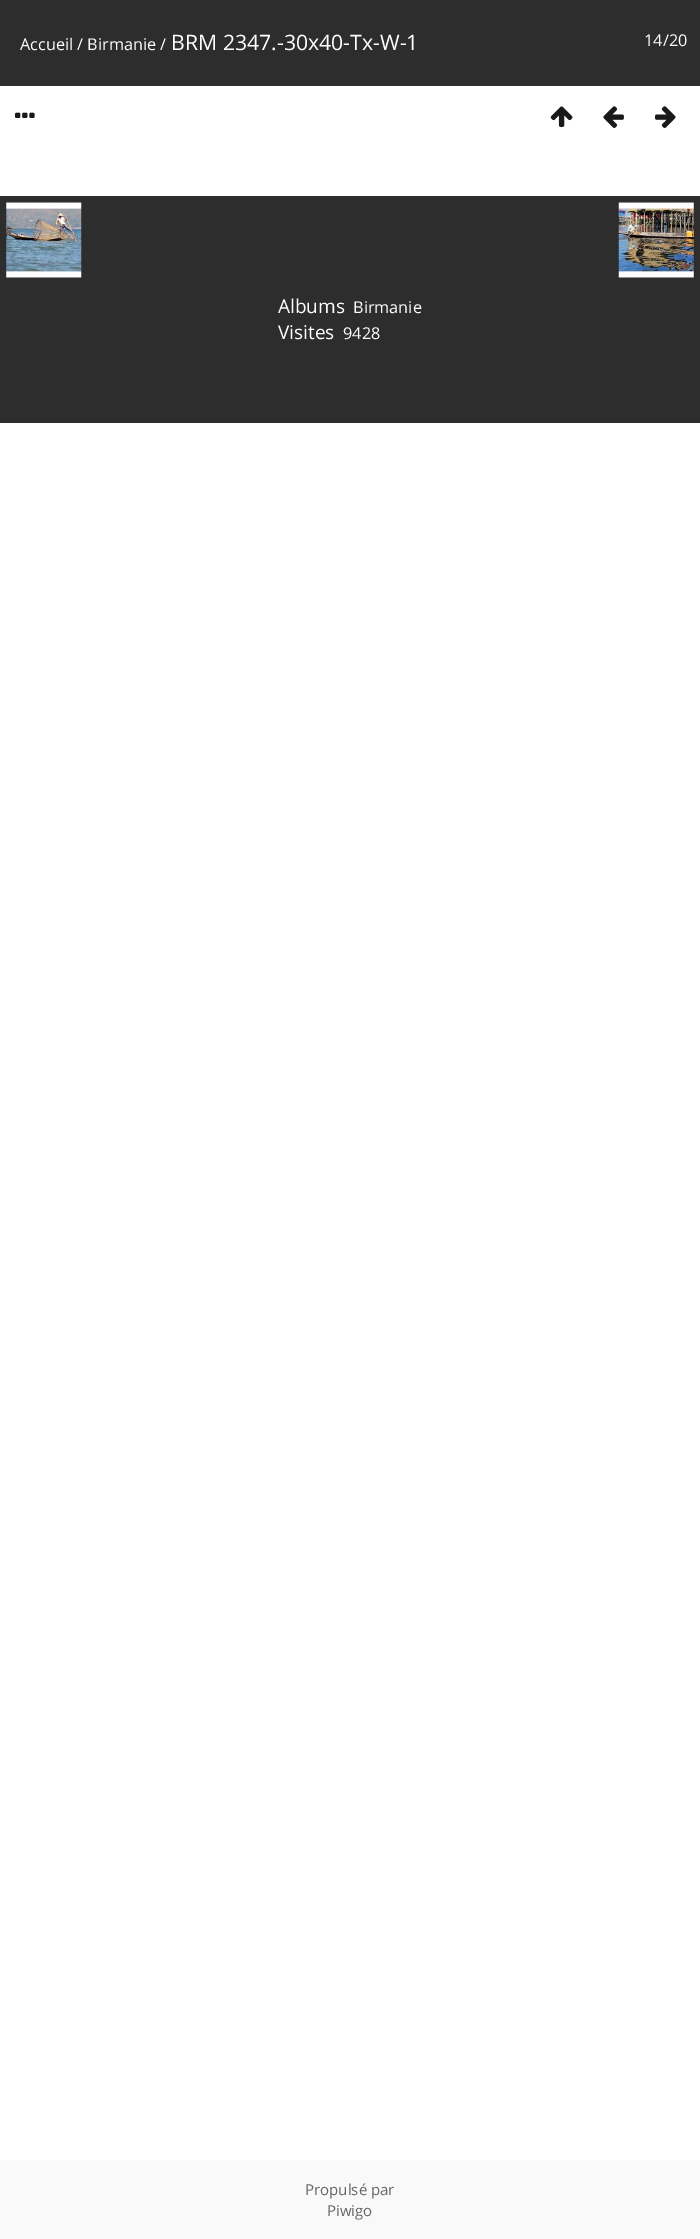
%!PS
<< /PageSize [700 2239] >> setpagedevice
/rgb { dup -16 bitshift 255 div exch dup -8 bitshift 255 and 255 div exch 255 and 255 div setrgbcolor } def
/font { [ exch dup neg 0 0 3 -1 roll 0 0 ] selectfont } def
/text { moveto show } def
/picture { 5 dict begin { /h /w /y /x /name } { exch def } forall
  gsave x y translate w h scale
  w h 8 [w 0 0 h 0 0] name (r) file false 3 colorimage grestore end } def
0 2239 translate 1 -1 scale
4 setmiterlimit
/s1 { /OpenSans-Regular 16.25 font 16#FFFFFF rgb } def
/s2 { /OpenSans-Regular 21.25 font 16#FFFFFF rgb } def
/s3 { /OpenSans-Regular 19 font 16#FFFFFF rgb } def
/s4 { /OpenSans-Regular 15 font 16#666666 rgb } def
16#FFFFFF rgb
0 0 700 2239 rectfill
16#2D2D2D rgb
0 0 700 86 rectfill
s1
(Accueil / Birmanie /) 20 50 text
s2
(BRM 2347.-30x40-Tx-W-1) 171 50 text
s1
(14/20) 644 46 text
(pic1.raw) 15 112 20 6 picture
(pic2.raw) 550 106 23 21 picture
(pic3.raw) 603 106 21 22 picture
(pic4.raw) 655 106 21 22 picture
16#2D2D2D rgb
0 196 700 227 rectfill
(pic5.raw) 6 202 76 76 picture
(pic6.raw) 618 202 76 76 picture
s3
(Albums) 278 313 text
s1
(Birmanie) 353 313 text
s3
(Visites) 278 339 text
s1
(9428) 343 339 text
16#F9F9F9 rgb
0 2160 700 79 rectfill
s4
(Propulsé par) 305 2195 text
(Piwigo) 327 2216 text
showpage
